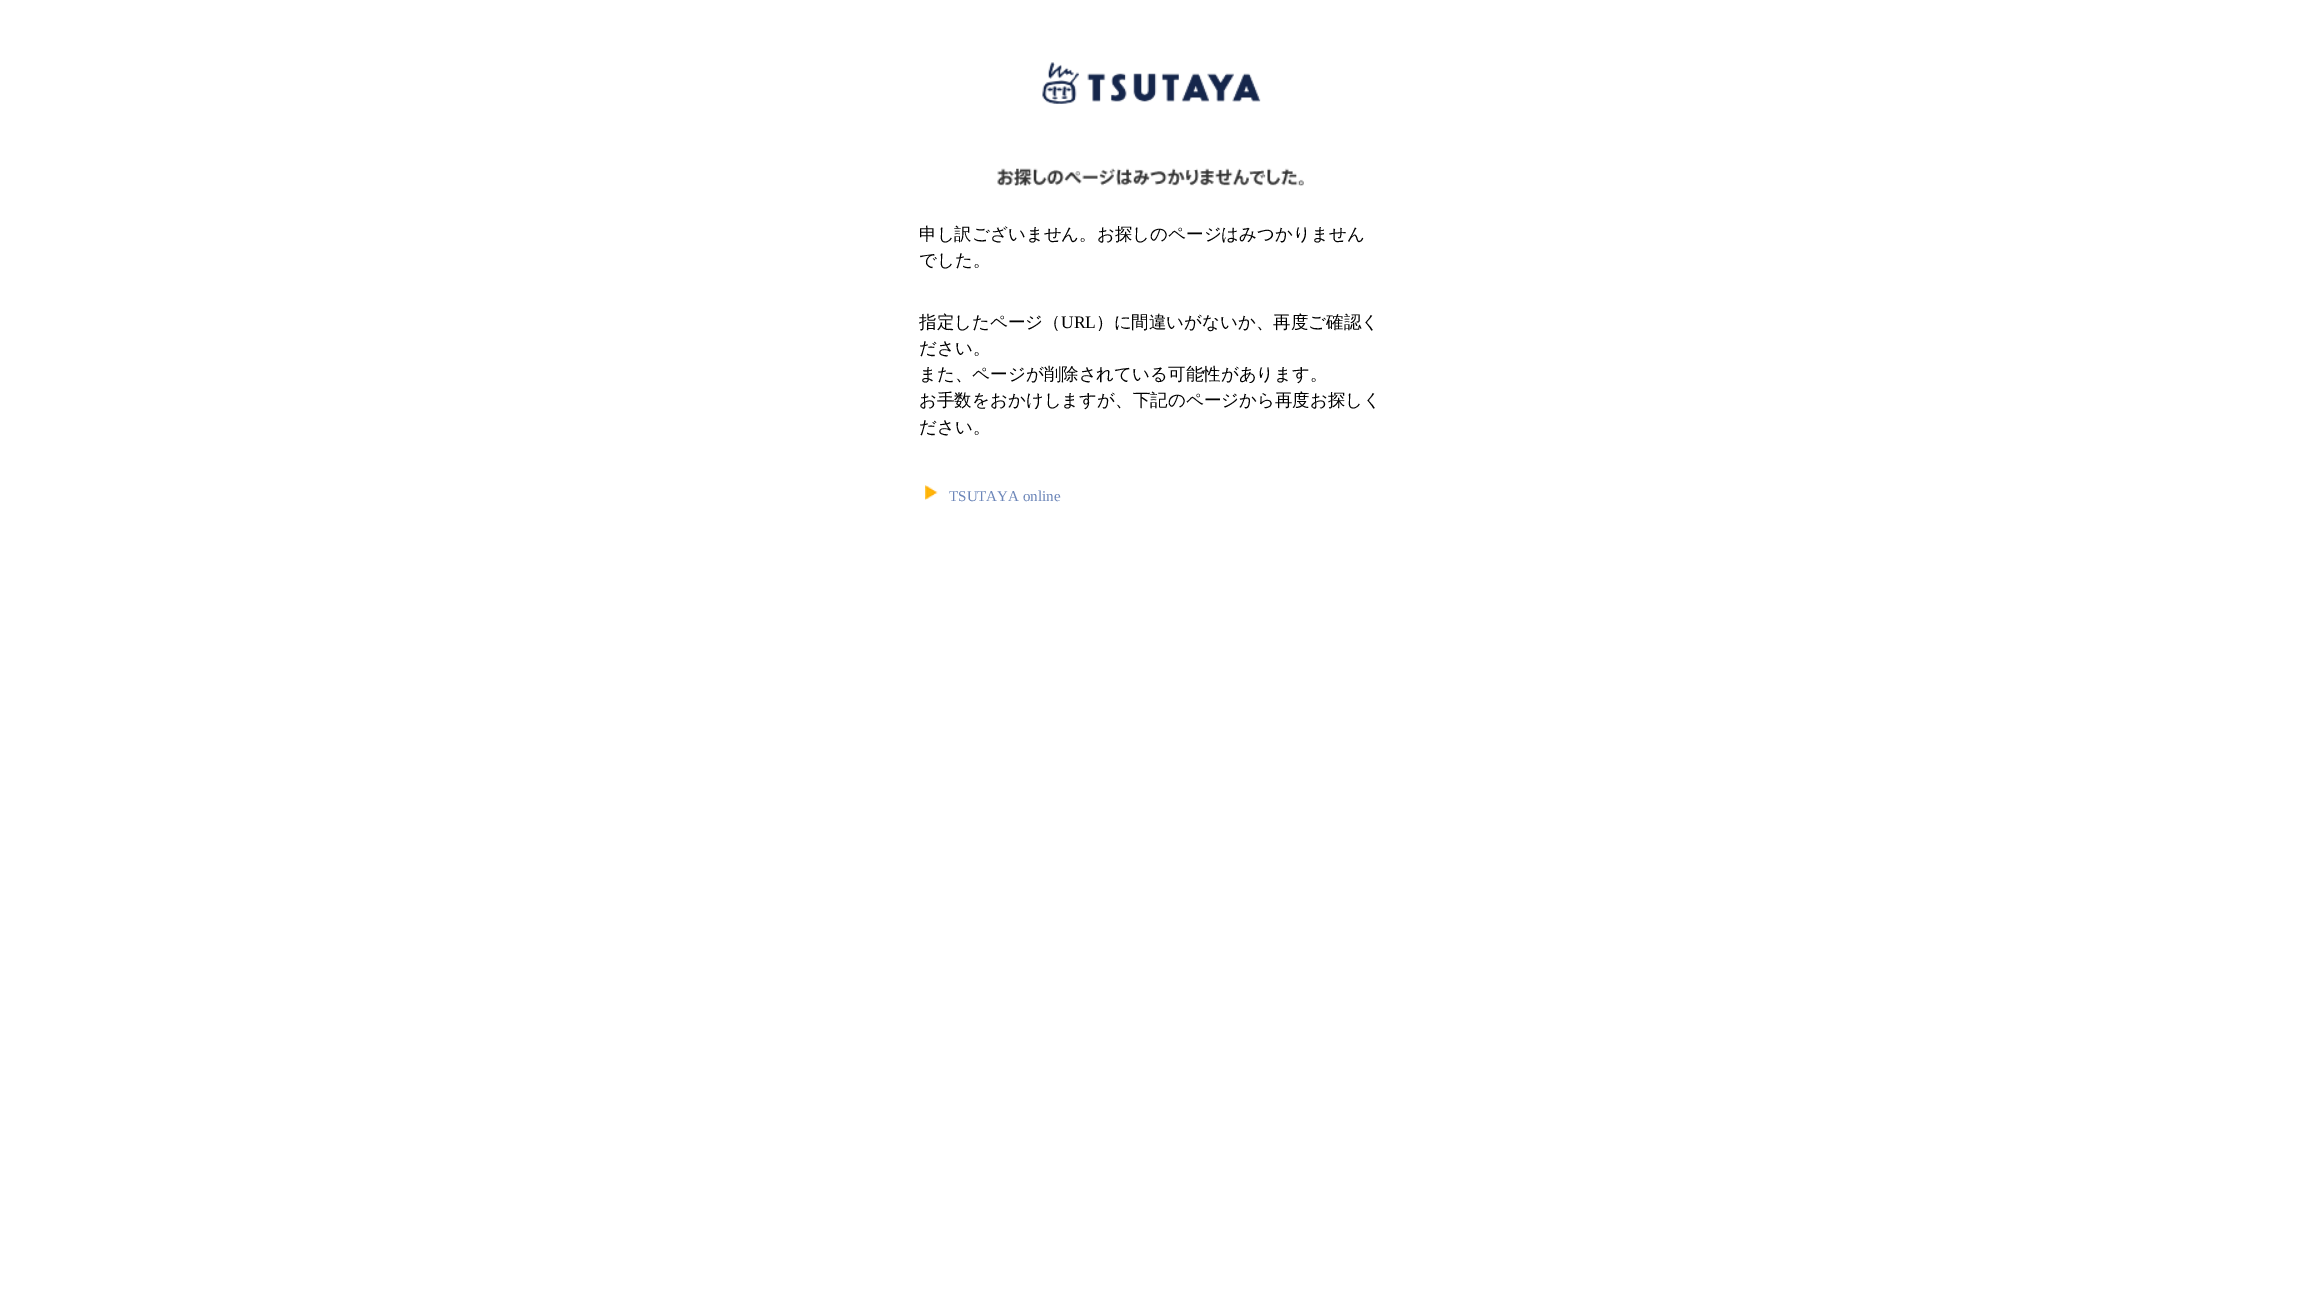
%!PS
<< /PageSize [2301 1293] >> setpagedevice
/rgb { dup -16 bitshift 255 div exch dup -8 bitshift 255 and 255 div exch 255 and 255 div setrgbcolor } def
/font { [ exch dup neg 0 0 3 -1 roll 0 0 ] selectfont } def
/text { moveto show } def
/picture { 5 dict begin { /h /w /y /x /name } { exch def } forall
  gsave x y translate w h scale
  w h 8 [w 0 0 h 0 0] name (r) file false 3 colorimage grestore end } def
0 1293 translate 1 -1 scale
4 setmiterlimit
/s1 { /WenQuanYiZenHei-Medium 17.5 font 16#000000 rgb } def
/s2 { /LiberationSerif-Regular 17.5 font 16#000000 rgb } def
/s3 { /LiberationSerif-Regular 15 font 16#6C86B9 rgb } def
16#FFFFFF rgb
0 0 2301 1293 rectfill
(pic1.raw) 997 62 307 124 picture
s1
(申し訳ございません。お探しのページはみつかりません) 919 240 text
(でした。) 919 266 text
(指定したページ（) 919 328 text
s2
(URL) 1061 328 text
s1
(）に間違いがないか、再度ご確認く) 1096 328 text
(ださい。) 919 354 text
(また、ページが削除されている可能性があります。) 919 380 text
(お手数をおかけしますが、下記のページから再度お探しく) 919 406 text
(ださい。) 919 433 text
(pic2.raw) 925 485 13 15 picture
s3
(TSUTAYA online) 949 501 text
showpage
